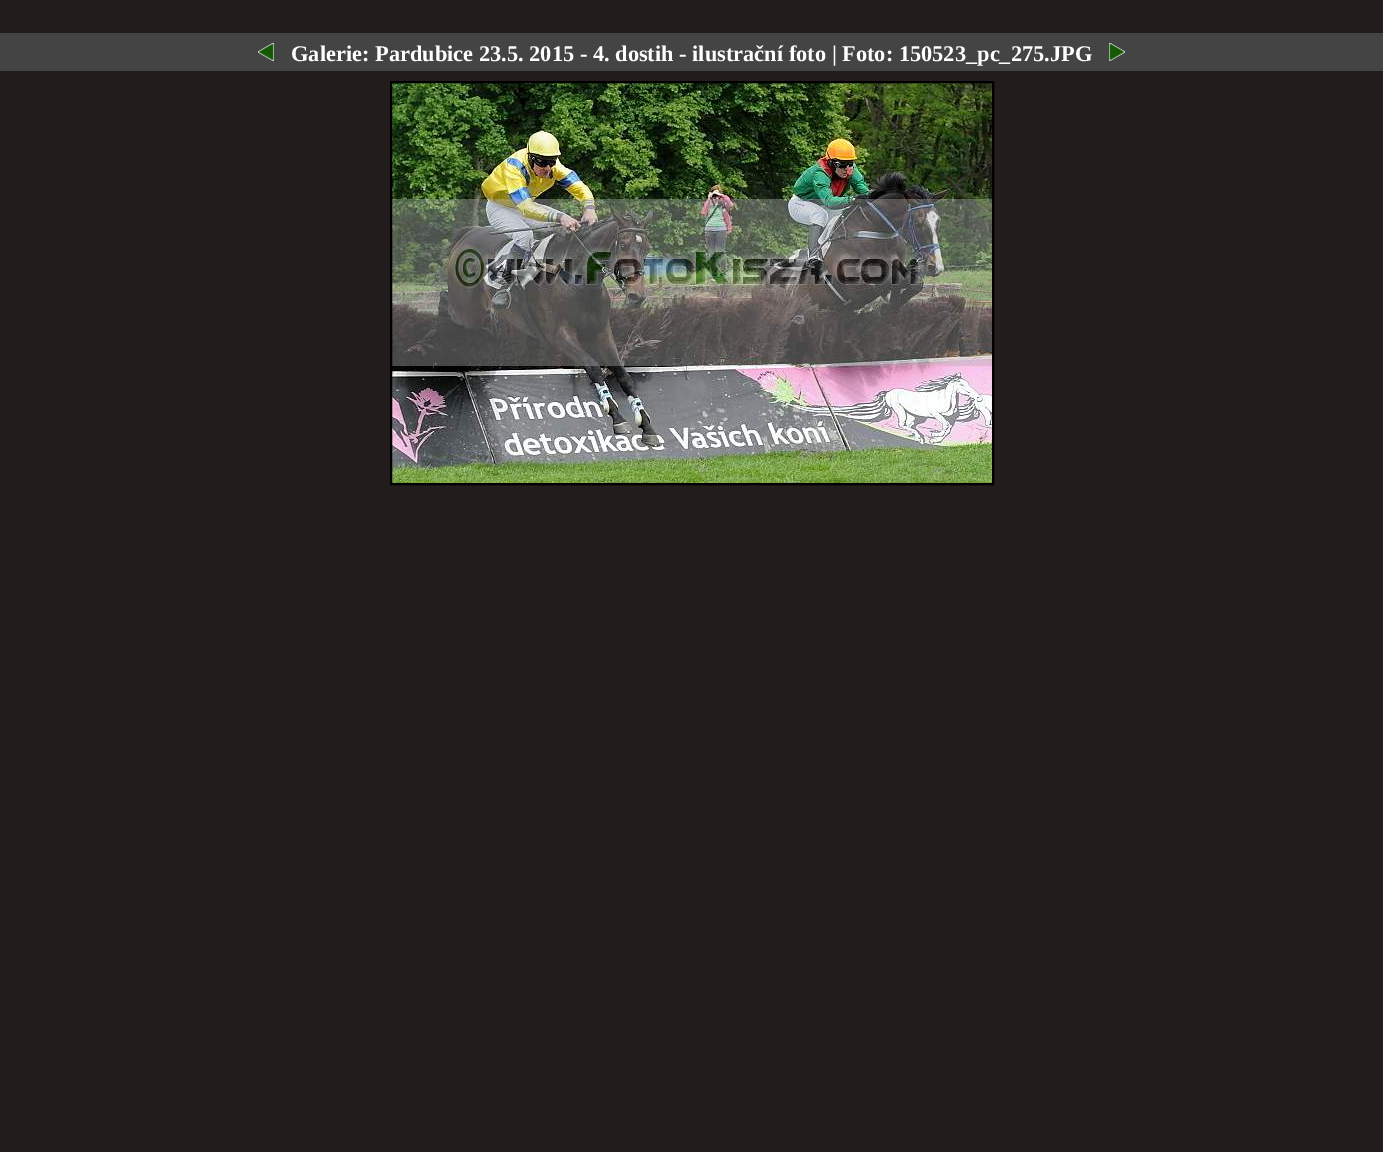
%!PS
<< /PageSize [1383 1152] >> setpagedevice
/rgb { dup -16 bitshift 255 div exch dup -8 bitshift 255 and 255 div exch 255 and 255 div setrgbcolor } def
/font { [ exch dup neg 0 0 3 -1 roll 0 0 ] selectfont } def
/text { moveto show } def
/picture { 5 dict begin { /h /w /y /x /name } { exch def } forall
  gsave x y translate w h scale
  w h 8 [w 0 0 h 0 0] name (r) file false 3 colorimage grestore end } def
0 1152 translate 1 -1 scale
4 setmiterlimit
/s1 { /LiberationSerif-Bold 22.4 font 16#FFFFFF rgb } def
16#221C1C rgb
0 0 1383 1152 rectfill
16#444444 rgb
0 33 1383 38 rectfill
(pic1.raw) 258 43 16 18 picture
s1
(Galerie: Pardubice 23.5. 2015 - 4. dostih - ilustrační foto | Foto: 150523_pc_275.JPG) 291 61 text
(pic2.raw) 1109 43 16 18 picture
(pic3.raw) 392 83 600 400 picture
16#000000 rgb
2 setlinewidth
391 82 602 402 rectstroke
showpage
